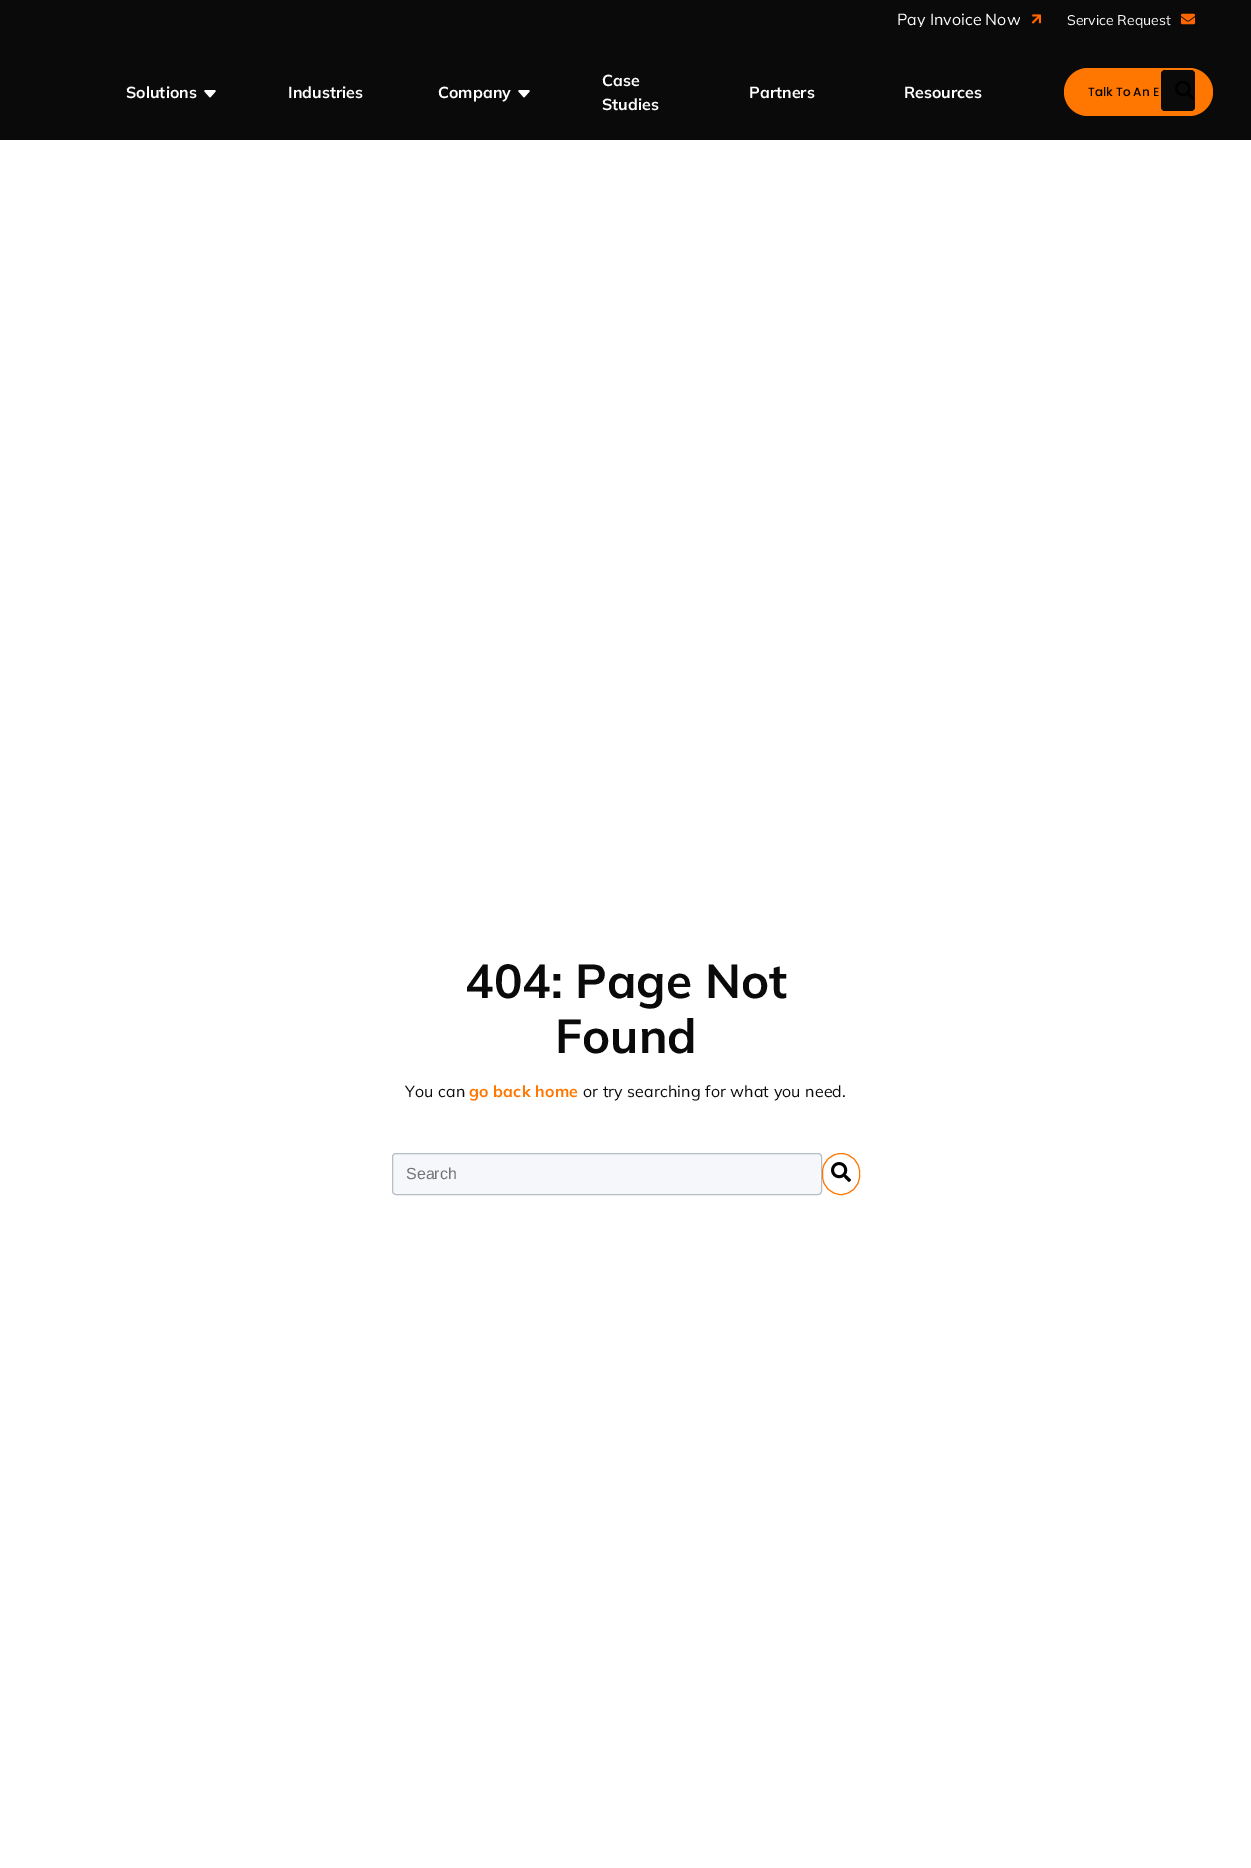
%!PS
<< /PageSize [1251 1868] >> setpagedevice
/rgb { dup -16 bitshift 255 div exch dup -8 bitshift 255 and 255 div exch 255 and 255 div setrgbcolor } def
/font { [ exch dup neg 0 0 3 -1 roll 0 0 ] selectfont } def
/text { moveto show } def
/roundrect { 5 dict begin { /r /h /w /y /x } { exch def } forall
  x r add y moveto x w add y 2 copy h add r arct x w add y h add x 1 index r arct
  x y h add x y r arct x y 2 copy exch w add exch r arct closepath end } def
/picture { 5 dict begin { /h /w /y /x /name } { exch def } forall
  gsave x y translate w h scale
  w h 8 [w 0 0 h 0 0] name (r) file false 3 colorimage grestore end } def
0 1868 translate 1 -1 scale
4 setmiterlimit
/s1 { /Mulish-Regular 16 font 16#FFFFFF rgb } def
/s2 { /Mulish-Regular 14 font 16#FFFFFF rgb } def
/s3 { /Mulish-Bold 16 font 16#FFFFFF rgb } def
/s4 { /Poppins-Medium 12 font 16#000000 rgb } def
/s5 { /Mulish-Bold 47.5 font 16#0A0A0A rgb } def
/s6 { /LiberationSans-Regular 16 font 16#757575 rgb } def
16#FFFFFF rgb
0 0 1251 1868 rectfill
16#0A0A0A rgb
0 0 1251 140 rectfill
gsave
897 11 123 16 8 roundrect clip newpath
s1
(Pay Invoice Now) 897 25 text
grestore
(pic1.raw) 1031 14 11 10 picture
s2
(Service Request) 1067 25 text
(pic2.raw) 1181 13 14 12 picture
s3
(Solutions) 126 98 text
(pic3.raw) 204 90 12 8 picture
(Industries) 288 98 text
(Company) 438 98 text
(pic3.raw) 518 90 12 8 picture
(Case) 602 86 text
(Studies) 602 110 text
(Partners) 749 98 text
(Resources) 904 98 text
16#FF7700 rgb
1064 68 149 48 24 roundrect fill
s4
(Talk To An E) 1088 96 text
16#0A0A0A rgb
1161 70 34 41 4 roundrect fill
(pic4.raw) 1175 81 19 19 picture
s5
(404: Page Not) 465 998 text
(Found) 555 1053 text
/Mulish-Regular 16 font
405 1097 moveto 0.15 0 (You can) ashow
/Mulish-Bold 16 font
16#FF7700 rgb
469 1097 moveto 0.15 0 (go back home) ashow
/Mulish-Regular 16 font
16#0A0A0A rgb
583 1097 moveto 0.15 0 (or try searching for what you need.) ashow
16#F5F7FA rgb
392.5 1153.5 429 41 3.5 roundrect gsave fill grestore
16#B5BEC5 rgb
stroke
s6
(Search) 406 1179 text
16#FF7700 rgb
822.5 1153.5 37 41 18.5 roundrect stroke
(pic5.raw) 831 1162 20 20 picture
showpage
